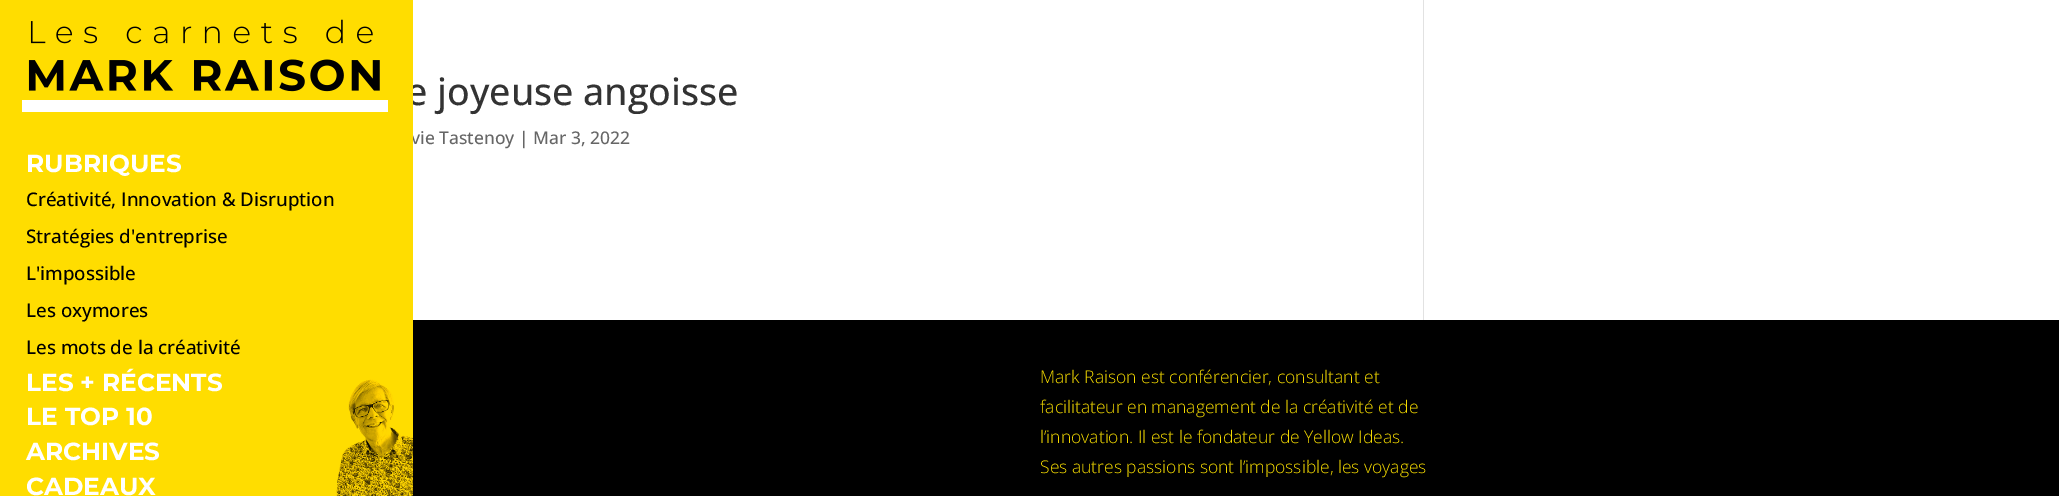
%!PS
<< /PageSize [2059 496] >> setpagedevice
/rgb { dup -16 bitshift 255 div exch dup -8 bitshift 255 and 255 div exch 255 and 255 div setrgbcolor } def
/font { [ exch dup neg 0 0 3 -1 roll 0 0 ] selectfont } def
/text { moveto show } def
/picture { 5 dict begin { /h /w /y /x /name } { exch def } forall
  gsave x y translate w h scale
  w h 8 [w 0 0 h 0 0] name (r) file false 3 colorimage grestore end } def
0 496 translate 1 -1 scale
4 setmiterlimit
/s1 { /OpenSans-Medium 37.5 font 16#333333 rgb } def
/s2 { /OpenSans-Medium 17.5 font 16#666666 rgb } def
/s3 { /Montserrat-Thin 24.75 font 16#FFFFFF rgb } def
/s4 { /OpenSans-Medium 18.75 font 16#000000 rgb } def
/s5 { /OpenSans-Light 17.5 font 16#F4DA01 rgb } def
16#FFFFFF rgb
0 0 2059 496 rectfill
s1
(e joyeuse angoisse) 406 105 text
s2
(vie Tastenoy | Mar 3, 2022) 411 144 text
16#FFDD00 rgb
0 0 413 496 rectfill
(pic1.raw) 22 19 366 93 picture
s3
(RUBRIQUES) 26 172 text
s4
(Créativité, Innovation & Disruption) 26 206 text
(Stratégies d'entreprise) 26 243 text
(L'impossible) 26 280 text
(Les oxymores) 26 317 text
(Les mots de la créativité) 26 354 text
(pic2.raw) 336 379 77 117 picture
s3
(LES + RÉCENTS) 26 391 text
(LE TOP 10) 26 425 text
(ARCHIVES) 26 460 text
(CADEAUX) 26 495 text
16#E2E2E2 rgb
1423 0 1 320 rectfill
16#000000 rgb
413 320 1646 176 rectfill
s5
(Mark Raison est conférencier, consultant et) 1040 383 text
(facilitateur en management de la créativité et de) 1040 413 text
(l’innovation. Il est le fondateur de Yellow Ideas.) 1040 443 text
(Ses autres passions sont l’impossible, les voyages) 1040 473 text
showpage
